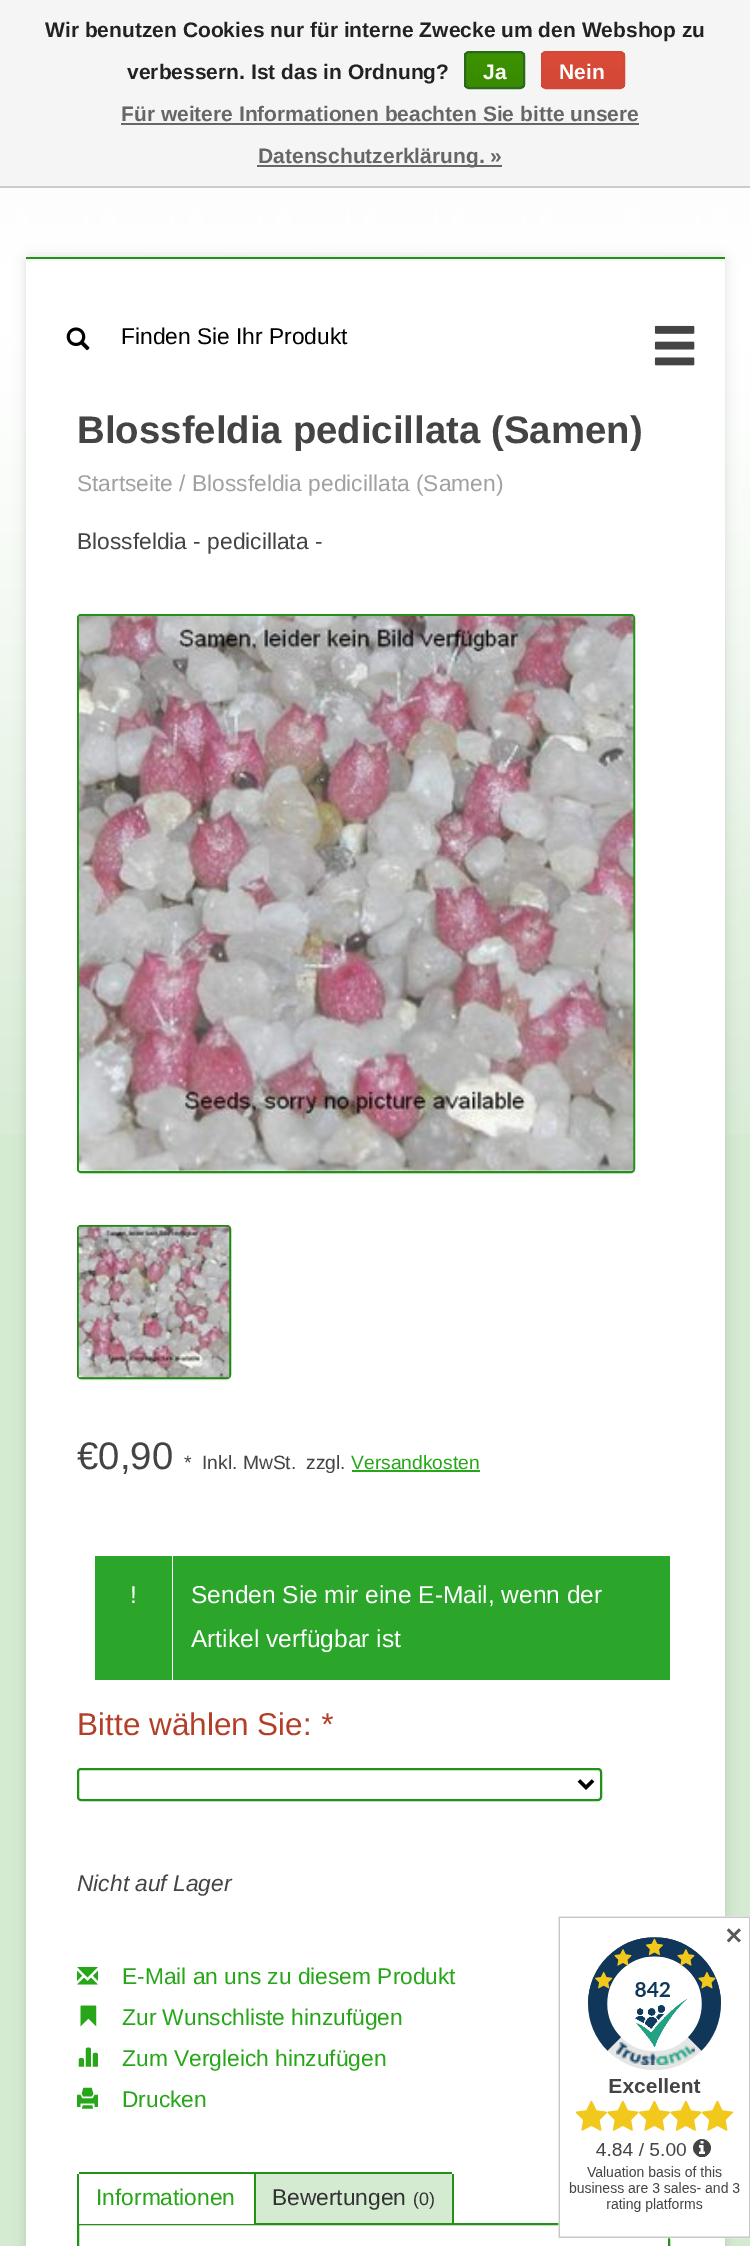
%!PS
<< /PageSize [750 2246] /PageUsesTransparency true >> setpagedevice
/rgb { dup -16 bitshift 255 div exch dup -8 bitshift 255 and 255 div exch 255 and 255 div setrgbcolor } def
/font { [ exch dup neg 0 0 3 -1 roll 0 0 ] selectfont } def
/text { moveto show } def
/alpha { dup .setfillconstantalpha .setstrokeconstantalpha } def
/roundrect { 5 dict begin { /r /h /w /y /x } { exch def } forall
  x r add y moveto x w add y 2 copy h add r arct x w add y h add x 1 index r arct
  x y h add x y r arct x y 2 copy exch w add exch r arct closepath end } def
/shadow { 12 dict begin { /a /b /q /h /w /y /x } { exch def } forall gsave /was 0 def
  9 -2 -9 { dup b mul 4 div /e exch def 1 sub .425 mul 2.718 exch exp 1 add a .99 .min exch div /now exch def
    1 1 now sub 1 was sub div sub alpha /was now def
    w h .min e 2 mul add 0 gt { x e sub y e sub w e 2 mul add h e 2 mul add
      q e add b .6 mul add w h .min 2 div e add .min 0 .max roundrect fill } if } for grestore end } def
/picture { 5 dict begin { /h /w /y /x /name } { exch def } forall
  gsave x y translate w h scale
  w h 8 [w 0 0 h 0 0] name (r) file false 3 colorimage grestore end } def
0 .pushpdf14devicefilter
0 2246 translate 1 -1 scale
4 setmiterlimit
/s1 { /LiberationSans-Bold 21 font 16#222222 rgb } def
/s2 { /LiberationSans-Bold 21 font 16#FFFFFF rgb } def
/s3 { /LiberationSans-Bold 21 font 16#666666 rgb } def
/s4 { /LiberationSans-Regular 22.75 font 16#000000 rgb } def
/s5 { /LiberationSans-Bold 38.4 font 16#444444 rgb } def
/s6 { /LiberationSans-Regular 22.75 font 16#A1A1A1 rgb } def
/s7 { /LiberationSans-Regular 22.75 font 16#444444 rgb } def
/s8 { /LiberationSans-Regular 38.4 font 16#444444 rgb } def
/s9 { /LiberationSans-Regular 19.25 font 16#444444 rgb } def
/s10 { /LiberationSans-Regular 19.25 font 16#27A619 rgb } def
/s11 { /LiberationSans-Regular 24.5 font 16#FFFFFF rgb } def
/s12 { /LiberationSans-Regular 31.5 font 16#B33F29 rgb } def
/s13 { /LiberationSans-Italic 31.5 font 16#B33F29 rgb } def
/s14 { /LiberationSans-Italic 22.75 font 16#444444 rgb } def
/s15 { /LiberationSans-Regular 22.75 font 16#27A619 rgb } def
/s16 { /LiberationSans-Regular 22.75 font 16#333333 rgb } def
/s17 { /LiberationSans-Regular 18 font 16#333333 rgb } def
/s18 { /DejaVuSans-Bold 22.75 font 16#595959 rgb } def
16#D4EAD1 rgb
0 0 750 2246 rectfill
(pic1.raw) 0 188 750 946 picture
16#F5F5F5 rgb
0 0 750 186 rectfill
16#CCCCCC rgb
0 186 750 2 rectfill
s1
(Wir benutzen Cookies nur für interne Zwecke um den Webshop zu) 45 37 text
(verbessern. Ist das in Ordnung?) 127 79 text
gsave
464 51 61 38 5 roundrect clip newpath
gsave 464 53 moveto 525 53 lineto 525 88 lineto 464 88 lineto closepath clip newpath
<< /ShadingType 2 /ColorSpace /DeviceRGB /Coords [494 53 494 88] /Extend [true true] /Function << /FunctionType 2 /Domain [0 1] /C0 [0.235 0.576 0] /C1 [0.224 0.541 0] /N 1 >> >> shfill grestore
grestore
16#29691D rgb
2 setlinewidth
465 52 59 36 4 roundrect stroke
s2
(Ja) 483 79 text
gsave
541 51 84 38 5 roundrect clip newpath
gsave 541 53 moveto 625 53 lineto 625 88 lineto 541 88 lineto closepath clip newpath
<< /ShadingType 2 /ColorSpace /DeviceRGB /Coords [583 52 583 88] /Extend [true true] /Function << /FunctionType 2 /Domain [0 1] /C0 [0.863 0.29 0.22] /C1 [0.82 0.282 0.212] /N 1 >> >> shfill grestore
grestore
16#D14836 rgb
542 52 82 36 4 roundrect stroke
s2
(Nein) 559 79 text
s3
(Für weitere Informationen beachten Sie bitte unsere) 121 121 text
121 123 518 2 rectfill
257 165 245 2 rectfill
(Datenschutzerklärung. ») 258 163 text
16#000000 rgb
26 257 699 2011 4 6 0.13 shadow
16#FFFFFF rgb
26 257 699 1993 4 roundrect fill
0.04 alpha
16#000000 rgb
26 259 699 2 rectfill
1 alpha
16#229216 rgb
26 257 699 2 rectfill
(pic2.raw) 66 327 24 24 picture
s4
(Finden Sie Ihr Produkt) 121 344 text
(pic3.raw) 654 325 41 41 picture
s5
(Blossfeldia pedicillata \(Samen\)) 77 443 text
s6
(Startseite / Blossfeldia pedicillata \(Samen\)) 77 491 text
s7
(Blossfeldia - pedicillata -) 77 549 text
16#F5F5F5 rgb
77 1169 moveto 77 1170 lineto 77 1172 79 1174 81 1174 curveto 631 1174 lineto 633 1174 635 1172 635 1170 curveto 634 1172 633 1172 632 1172 curveto 80 1172 lineto 79 1172 77 1171 77 1169 curveto closepath fill
16#229216 rgb
78 615 556 557 3 roundrect stroke
(pic4.raw) 78 616 556 555 picture
16#F5F5F5 rgb
77 1376 moveto 77 1377 lineto 77 1379 79 1381 81 1381 curveto 227 1381 lineto 229 1381 231 1379 231 1377 curveto 231 1376 lineto 231 1377 229 1379 228 1379 curveto 80 1379 lineto 79 1379 77 1377 77 1376 curveto closepath fill
16#1F8814 rgb
78 1226 152 152 3 roundrect stroke
(pic5.raw) 78 1226 152 152 picture
s8
(€0,90) 77 1469 text
s9
(*) 184 1469 text
(Inkl. MwSt.) 202 1469 text
(zzgl.) 306 1469 text
s10
(Versandkosten) 351 1469 text
352 1470 128 2 rectfill
16#2BA62A rgb
95 1556 77 124 rectfill
s11
(!) 130 1603 text
16#2BA62A rgb
173 1556 497 124 rectfill
s11
(Senden Sie mir eine E-Mail, wenn der) 191 1603 text
(Artikel verfügbar ist) 191 1647 text
s12
(Bitte wählen Sie:) 77 1735 text
s13
(*) 320 1735 text
16#229216 rgb
78 1769 523 31 3 roundrect stroke
16#000000 rgb
3.5 setlinewidth
579 1780.5 moveto 586 1787.5 lineto 593 1780.5 lineto stroke
s14
(Nicht auf Lager) 77 1891 text
(pic6.raw) 77 1967 21 18 picture
s15
(E-Mail an uns zu diesem Produkt) 122 1984 text
(pic7.raw) 80 2005 17 22 picture
(Zur Wunschliste hinzufügen) 122 2025 text
(pic8.raw) 78 2047 20 20 picture
(Zum Vergleich hinzufügen) 122 2066 text
(pic9.raw) 77 2087 21 22 picture
(Drucken) 122 2107 text
16#229216 rgb
2 setlinewidth
78 2224 591 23 rectstroke
16#FFFFFF rgb
81 2172 moveto 256 2172 lineto 256 2224 lineto 77 2224 lineto 77 2176 lineto 77 2174 79 2172 81 2172 curveto closepath fill
16#229216 rgb
79 2172 177 2 rectfill
254 2223 2 1 rectfill
77 2174 2 50 rectfill
s15
(Informationen) 96 2205 text
16#D4EAD1 rgb
254 2172 moveto 449 2172 lineto 451 2172 453 2174 453 2176 curveto 453 2223 lineto 254 2223 lineto closepath fill
16#229216 rgb
254 2172 198 2 rectfill
452 2174 2 49 rectfill
254 2172 2 51 rectfill
s16
(Bewertungen) 272 2205 text
s17
(\(0\)) 413 2205 text
(pic10.raw) 558 1916 192 323 picture
s18
(✕) 724 1944 text
.poppdf14devicefilter showpage
